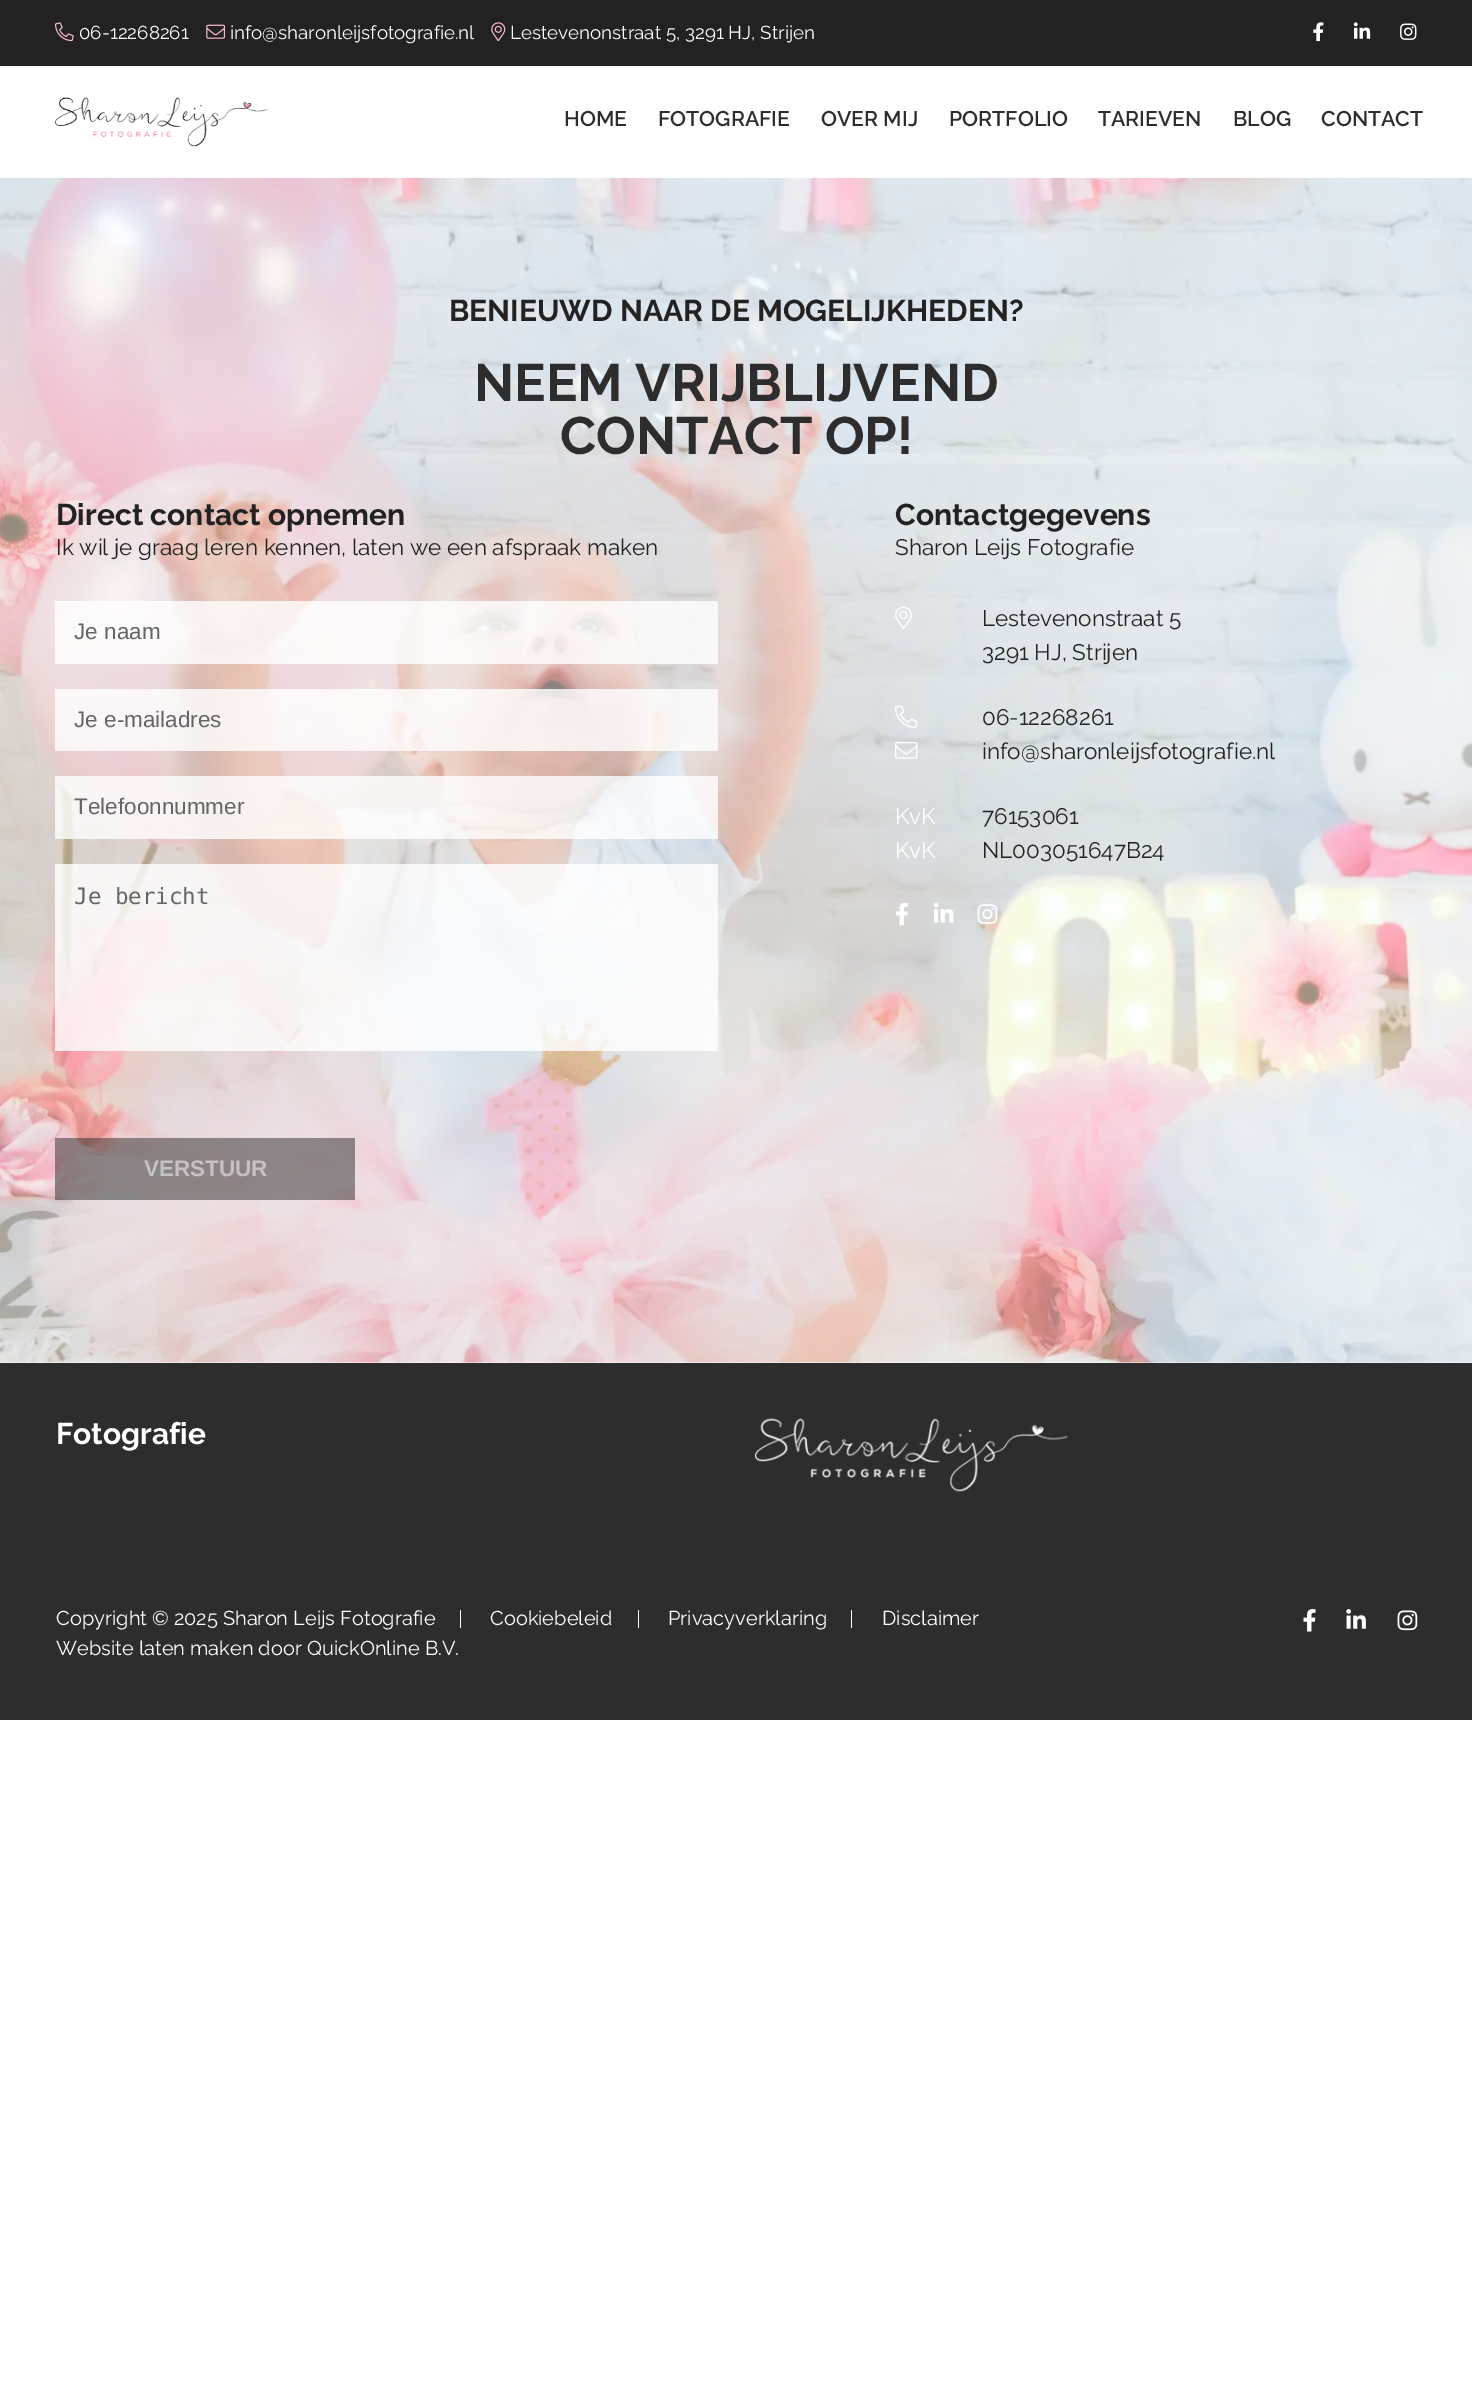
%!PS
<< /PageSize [1472 2387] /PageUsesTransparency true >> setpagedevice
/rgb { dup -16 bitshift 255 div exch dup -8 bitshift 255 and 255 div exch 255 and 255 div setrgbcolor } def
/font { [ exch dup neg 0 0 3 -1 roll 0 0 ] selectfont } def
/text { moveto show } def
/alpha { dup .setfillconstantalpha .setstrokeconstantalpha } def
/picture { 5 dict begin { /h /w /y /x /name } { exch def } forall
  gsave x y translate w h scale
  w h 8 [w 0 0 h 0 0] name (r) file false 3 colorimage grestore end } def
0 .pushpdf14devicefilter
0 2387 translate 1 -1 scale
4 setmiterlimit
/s1 { /Raleway-Regular 18.75 font 16#FFFFFF rgb } def
/s2 { /Raleway-SemiBold 21.25 font 16#2D2D2D rgb } def
/s3 { /Raleway-Bold 30 font 16#222222 rgb } def
/s4 { /Raleway-Bold 52.5 font 16#2D2D2D rgb } def
/s5 { /Raleway-Regular 22.5 font 16#222222 rgb } def
/s6 { /LiberationSans-Regular 22.5 font 16#666666 rgb } def
/s7 { /DejaVuSansMono-Regular 22.5 font 16#666666 rgb } def
/s8 { /LiberationSans-Bold 22.5 font 16#C6C1C2 rgb } def
/s9 { /Raleway-Regular 22.5 font 16#FFFFFF rgb } def
/s10 { /Raleway-Bold 30 font 16#FFFFFF rgb } def
/s11 { /Raleway-Regular 20 font 16#FFFFFF rgb } def
16#FFFFFF rgb
0 0 1472 2387 rectfill
16#222222 rgb
0 0 1472 66 rectfill
(pic1.raw) 55 22 19 20 picture
s1
(06-12268261) 79 39 text
(pic2.raw) 206 24 19 15 picture
(info@sharonleijsfotografie.nl) 230 39 text
(pic3.raw) 491 22 15 20 picture
(Lestevenonstraat 5, 3291 HJ, Strijen) 510 39 text
(pic4.raw) 1313 22 11 20 picture
(pic5.raw) 1353 22 18 17 picture
(pic6.raw) 1400 23 17 17 picture
(pic8.raw) 0 177 1472 1186 picture
0.9 alpha
0 177 1472 1 rectfill
1 alpha
(pic7.raw) 55 97 213 50 picture
s2
(HOME) 564 126 text
(FOTOGRAFIE) 658 126 text
(OVER MIJ) 821 126 text
(PORTFOLIO) 949 126 text
(TARIEVEN) 1098 126 text
(BLOG) 1233 126 text
(CONTACT) 1321 126 text
s3
(BENIEUWD NAAR DE MOGELIJKHEDEN?) 449 321 text
s4
(NEEM VRIJBLIJVEND) 474 401 text
(CONTACT OP!) 560 454 text
s3
(Direct contact opnemen) 56 525 text
s5
(Ik wil je graag leren kennen, laten we een afspraak maken) 56 555 text
0.8 alpha
16#FFFFFF rgb
55 601 663 63 rectfill
1 alpha
s6
(Je naam) 74 639 text
0.8 alpha
16#FFFFFF rgb
55 689 663 62 rectfill
1 alpha
s6
(Je e-mailadres) 74 727 text
0.8 alpha
16#FFFFFF rgb
55 776 663 63 rectfill
1 alpha
s6
(Telefoonnummer) 74 814 text
0.8 alpha
16#FFFFFF rgb
55 864 663 187 rectfill
1 alpha
s7
(Je bericht) 74 904 text
0.5 alpha
16#2D2D2D rgb
55 1138 300 62 rectfill
1 alpha
s8
(VERSTUUR) 144 1176 text
s3
(Contactgegevens) 895 525 text
s5
(Sharon Leijs Fotografie) 895 555 text
(pic9.raw) 895 606 17 23 picture
(Lestevenonstraat 5) 982 626 text
(3291 HJ, Strijen) 982 660 text
(pic10.raw) 895 705 23 23 picture
(06-12268261) 982 725 text
(pic11.raw) 895 741 23 18 picture
(info@sharonleijsfotografie.nl) 982 759 text
s9
(KvK) 895 824 text
s5
(76153061) 982 824 text
s9
(KvK) 895 858 text
s5
(NL003051647B24) 982 858 text
(pic12.raw) 896 902 12 24 picture
(pic13.raw) 933 902 21 21 picture
(pic14.raw) 977 904 21 20 picture
16#2D2D2D rgb
0 1363 1472 357 rectfill
s10
(Fotografie) 56 1444 text
(pic15.raw) 755 1418 313 74 picture
s11
(Copyright © 2025 Sharon Leijs Fotografie) 56 1625 text
460 1610 1 18 rectfill
(Cookiebeleid) 490 1625 text
638 1610 1 18 rectfill
(Privacyverklaring) 668 1625 text
851 1610 1 18 rectfill
(Disclaimer) 882 1625 text
(Website laten maken door QuickOnline B.V.) 56 1655 text
(pic16.raw) 1303 1609 13 23 picture
(pic17.raw) 1346 1609 20 20 picture
(pic18.raw) 1397 1610 21 21 picture
.poppdf14devicefilter showpage
